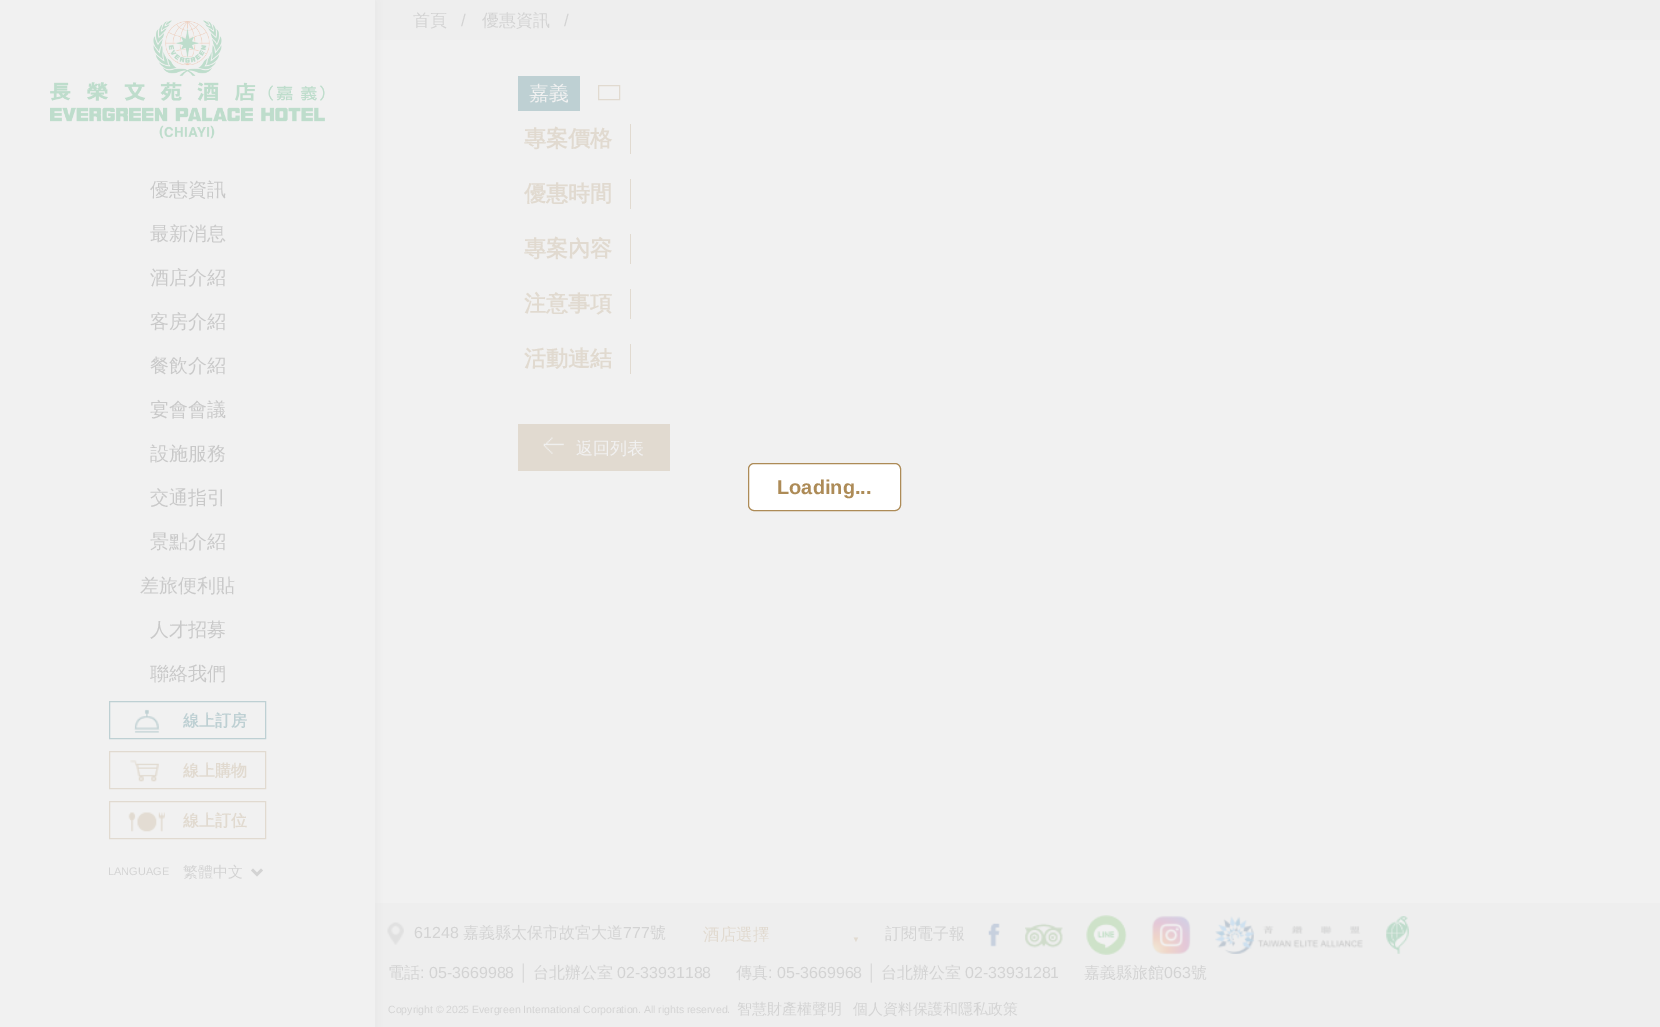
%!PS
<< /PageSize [1660 1027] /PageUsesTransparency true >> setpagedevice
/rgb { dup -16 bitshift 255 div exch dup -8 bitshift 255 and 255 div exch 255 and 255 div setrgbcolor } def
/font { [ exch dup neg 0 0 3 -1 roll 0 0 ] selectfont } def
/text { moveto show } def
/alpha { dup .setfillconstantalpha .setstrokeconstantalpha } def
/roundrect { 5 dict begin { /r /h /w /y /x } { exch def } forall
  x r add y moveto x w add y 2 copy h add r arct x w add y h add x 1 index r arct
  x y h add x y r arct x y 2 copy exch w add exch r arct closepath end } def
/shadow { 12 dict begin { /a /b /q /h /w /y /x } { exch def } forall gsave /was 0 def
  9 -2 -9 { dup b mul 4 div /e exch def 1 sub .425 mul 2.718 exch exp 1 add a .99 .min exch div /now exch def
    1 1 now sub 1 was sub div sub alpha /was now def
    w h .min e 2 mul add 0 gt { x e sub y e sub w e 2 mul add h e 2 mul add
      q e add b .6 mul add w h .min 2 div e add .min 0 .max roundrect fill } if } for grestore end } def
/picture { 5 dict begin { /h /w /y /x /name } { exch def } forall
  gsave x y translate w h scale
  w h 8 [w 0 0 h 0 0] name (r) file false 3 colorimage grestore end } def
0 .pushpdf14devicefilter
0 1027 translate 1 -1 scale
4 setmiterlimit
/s1 { /WenQuanYiZenHei-Medium 19 font 16#C9C9C9 rgb } def
/s2 { /WenQuanYiZenHei-Bold 16 font 16#BED0D3 rgb } def
/s3 { /WenQuanYiZenHei-Bold 16 font 16#E1DAD0 rgb } def
/s4 { /LiberationSans-Regular 11 font 16#D3D3D3 rgb } def
/s5 { /WenQuanYiZenHei-Medium 15 font 16#D3D3D3 rgb } def
/s6 { /WenQuanYiZenHei-Medium 17 font 16#D3D3D3 rgb } def
/s7 { /LiberationSans-Regular 17 font 16#D3D3D3 rgb } def
/s8 { /WenQuanYiZenHei-Medium 20 font 16#F1F1F1 rgb } def
/s9 { /WenQuanYiZenHei-Bold 22 font 16#E1DAD0 rgb } def
/s10 { /WenQuanYiZenHei-Medium 17 font 16#F1F1F1 rgb } def
/s11 { /LiberationSans-Regular 16 font 16#D3D3D3 rgb } def
/s12 { /WenQuanYiZenHei-Medium 16 font 16#D3D3D3 rgb } def
/s13 { /WenQuanYiZenHei-Medium 16.5 font 16#E1DAD0 rgb } def
/s14 { /LiberationSans-Regular 8 font 16#E1DAD0 rgb } def
/s15 { /LiberationSans-Bold 20 font 16#AD8B57 rgb } def
16#F1F1F1 rgb
0 0 1660 1027 rectfill
16#EEEEEE rgb
375 0 1285 40 rectfill
375 903 1285 124 rectfill
(pic6.raw) 387 922 17 23 picture
16#BEBEBE rgb
1 1 375 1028 0 6 0.2 shadow
16#F1F1F1 rgb
0 0 375 1027 rectfill
(pic1.raw) 50 20 275 119 picture
s1
(優惠資訊) 150 196 text
(最新消息) 150 240 text
(酒店介紹) 150 284 text
(客房介紹) 150 328 text
(餐飲介紹) 150 372 text
(宴會會議) 150 416 text
(設施服務) 150 460 text
(交通指引) 150 504 text
(景點介紹) 150 548 text
(差旅便利貼) 140 592 text
(人才招募) 150 636 text
(聯絡我們) 150 680 text
16#BED0D3 rgb
109.5 701.5 156 37 rectstroke
(pic2.raw) 133 709 27 24 picture
s2
(線上訂房) 183 726 text
16#E1DAD0 rgb
109.5 751.5 156 37 rectstroke
(pic3.raw) 130 760 29 22 picture
(線上購物) 183 776 text
109.5 801.5 156 37 rectstroke
(pic4.raw) 128 812 37 20 picture
(線上訂位) 183 826 text
s4
(LANGUAGE) 108 875 text
2.5 setlinewidth
252 869.5 moveto 257 874.5 lineto 262 869.5 lineto stroke
s5
(繁體中文) 183 877 text
s6
(首頁) 413 26 text
s7
(/) 461 26 text
s6
(優惠資訊) 482 26 text
s7
(/) 564 26 text
16#BED0D3 rgb
518 76 62 35 rectfill
s8
(嘉義) 529 100 text
16#E1DAD0 rgb
1 setlinewidth
598.5 85.5 21 14 rectstroke
630 124 1 30 rectfill
s9
(專案價格) 524 146 text
630 179 1 30 rectfill
(優惠時間) 524 201 text
630 234 1 30 rectfill
(專案內容) 524 256 text
630 289 1 30 rectfill
(注意事項) 524 311 text
630 344 1 30 rectfill
(活動連結) 524 366 text
518 424 152 47 rectfill
(pic5.raw) 543 437 21 17 picture
s10
(返回列表) 576 454 text
s11
(61248) 414 938 text
s12
(嘉義縣太保市故宮大道) 463 938 text
s11
(777) 623 938 text
s12
(號) 650 938 text
s13
(酒店選擇) 703 940 text
s14
(▼) 852 942 text
s12
(訂閱電子報) 885 939 text
(pic7.raw) 988 923 12 24 picture
(pic8.raw) 1025 923 38 25 picture
(pic9.raw) 1086 915 41 40 picture
(pic10.raw) 1151 915 40 40 picture
(pic11.raw) 1215 916 148 38 picture
(pic12.raw) 1386 916 23 38 picture
(電話) 388 978 text
s11
(: 05-3669988 │) 420 978 text
s12
(台北辦公室) 533 978 text
s11
(02-33931188) 617 978 text
s12
(傳真) 736 978 text
s11
(: 05-3669968 │) 768 978 text
s12
(台北辦公室) 881 978 text
s11
(02-33931281) 965 978 text
s12
(嘉義縣旅館) 1084 978 text
s11
(063) 1164 978 text
s12
(號) 1191 978 text
/LiberationSans-Regular 10.5 font
388 1013 moveto -0.25 0 32 (Copyright © 2025 Evergreen International Corporation. All rights reserved.) widthshow
s5
(智慧財產權聲明) 737 1014 text
(個人資料保護和隱私政策) 853 1014 text
16#FFFFFF rgb
748.5 463.5 152 47 5.5 roundrect gsave fill grestore
16#AD8B57 rgb
stroke
s15
(Loading...) 777 494 text
.poppdf14devicefilter showpage
